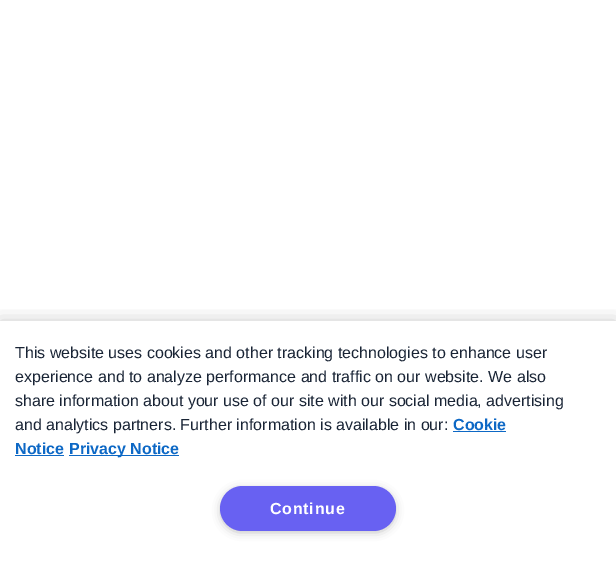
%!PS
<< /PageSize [616 570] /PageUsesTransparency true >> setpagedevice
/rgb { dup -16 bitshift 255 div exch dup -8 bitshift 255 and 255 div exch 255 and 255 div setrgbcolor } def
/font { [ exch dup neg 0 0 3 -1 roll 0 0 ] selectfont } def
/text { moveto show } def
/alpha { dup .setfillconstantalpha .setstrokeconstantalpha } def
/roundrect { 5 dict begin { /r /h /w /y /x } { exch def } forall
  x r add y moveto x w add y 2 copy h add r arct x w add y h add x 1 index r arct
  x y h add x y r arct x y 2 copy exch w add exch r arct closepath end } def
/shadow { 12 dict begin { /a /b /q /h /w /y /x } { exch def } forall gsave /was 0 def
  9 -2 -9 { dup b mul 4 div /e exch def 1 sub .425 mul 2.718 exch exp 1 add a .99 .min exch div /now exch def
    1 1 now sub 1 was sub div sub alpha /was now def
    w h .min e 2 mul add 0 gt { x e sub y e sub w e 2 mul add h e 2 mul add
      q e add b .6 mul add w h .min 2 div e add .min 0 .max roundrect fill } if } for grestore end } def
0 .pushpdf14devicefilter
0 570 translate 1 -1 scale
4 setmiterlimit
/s1 { /LiberationSans-Regular 16 font 16#192435 rgb } def
/s2 { /LiberationSans-Bold 16 font 16#0D68C5 rgb } def
16#FFFFFF rgb
0 0 616 570 rectfill
gsave
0 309 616 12 rectclip
16#000000 rgb
0 321 616 249 0 9 0.2 shadow
grestore
s1
(This website uses cookies and other tracking technologies to enhance user) 15 358 text
(experience and to analyze performance and traffic on our website. We also) 15 382 text
(share information about your use of our site with our social media, advertising) 15 406 text
(and analytics partners. Further information is available in our:) 15 430 text
s2
(Cookie) 453 430 text
453 431 53 1 rectfill
(Notice) 15 454 text
15 455 49 1 rectfill
69 455 110 1 rectfill
(Privacy Notice) 69 454 text
16#999999 rgb
223 491 170 39 19.5 5 1 shadow
16#6861F2 rgb
220 486 176 45 22.5 roundrect fill
16#FFFFFF rgb
270 514 moveto 0.75 0 (Continue) ashow
.poppdf14devicefilter showpage
